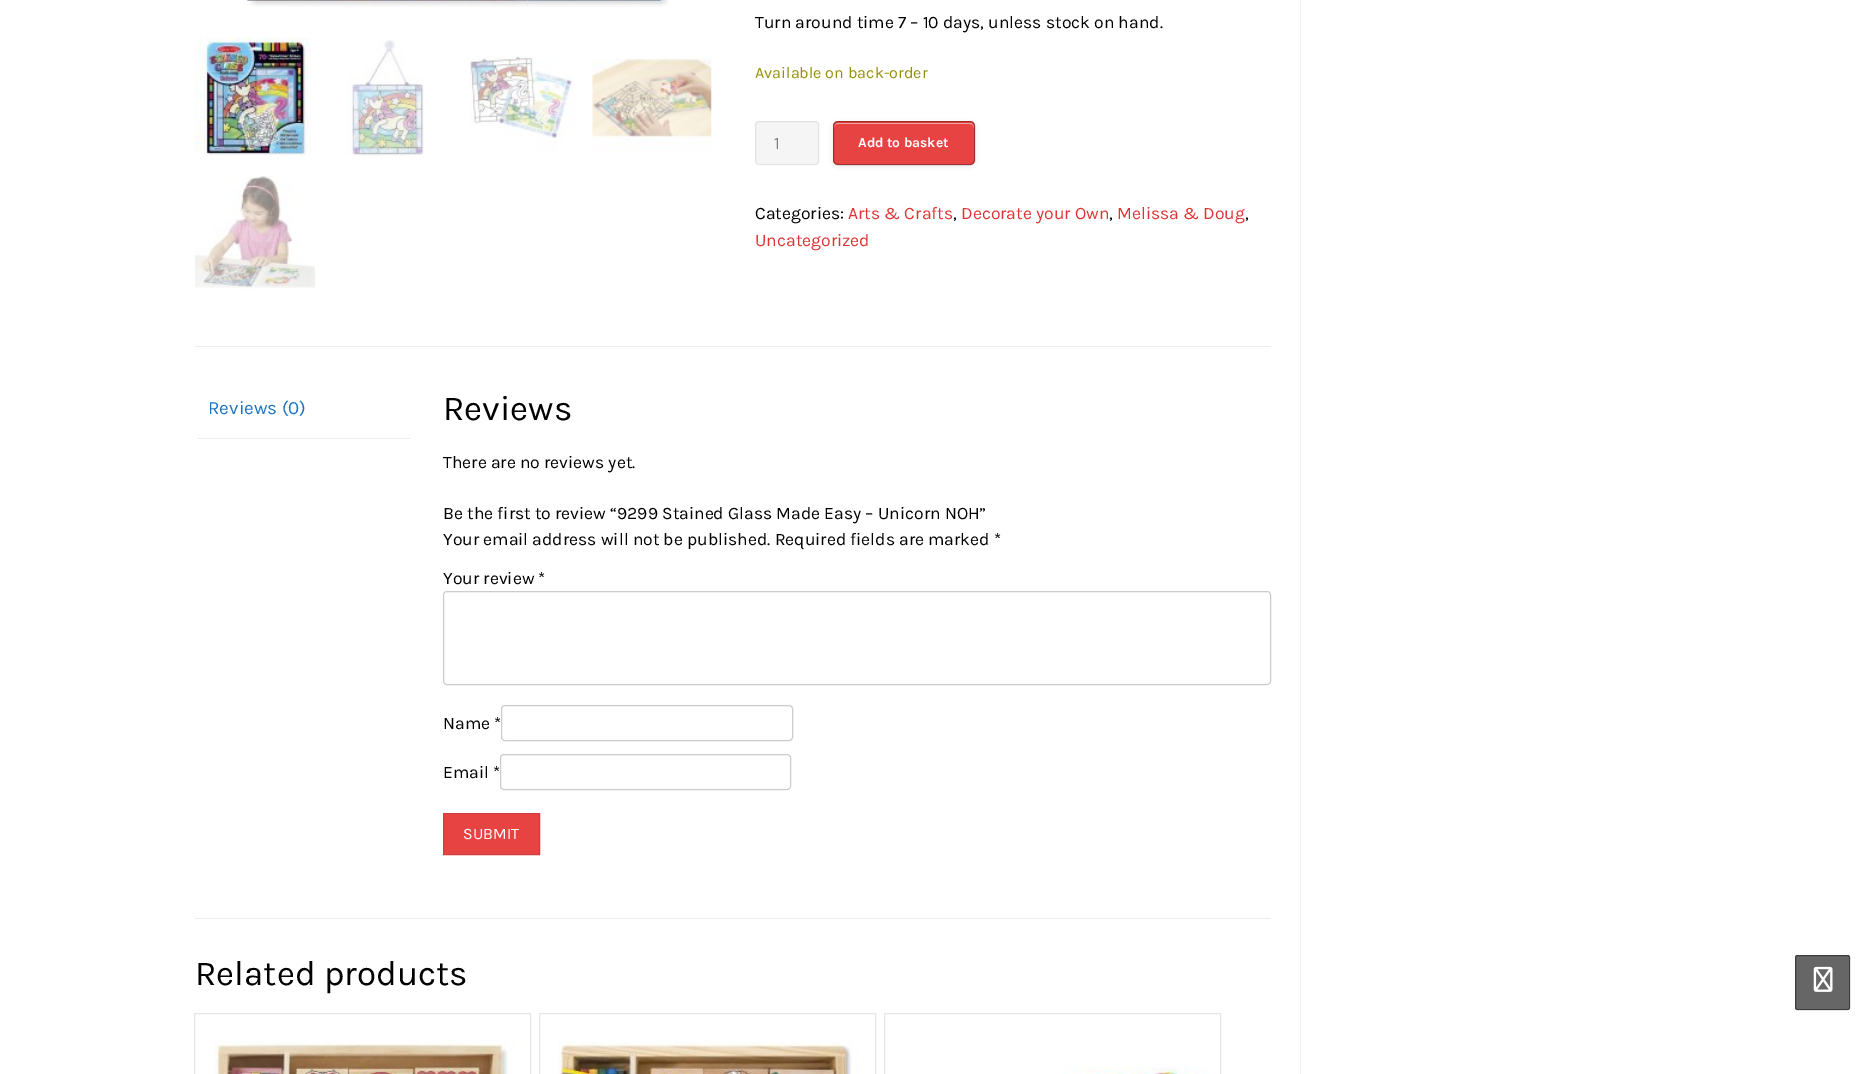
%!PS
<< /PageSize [1865 1074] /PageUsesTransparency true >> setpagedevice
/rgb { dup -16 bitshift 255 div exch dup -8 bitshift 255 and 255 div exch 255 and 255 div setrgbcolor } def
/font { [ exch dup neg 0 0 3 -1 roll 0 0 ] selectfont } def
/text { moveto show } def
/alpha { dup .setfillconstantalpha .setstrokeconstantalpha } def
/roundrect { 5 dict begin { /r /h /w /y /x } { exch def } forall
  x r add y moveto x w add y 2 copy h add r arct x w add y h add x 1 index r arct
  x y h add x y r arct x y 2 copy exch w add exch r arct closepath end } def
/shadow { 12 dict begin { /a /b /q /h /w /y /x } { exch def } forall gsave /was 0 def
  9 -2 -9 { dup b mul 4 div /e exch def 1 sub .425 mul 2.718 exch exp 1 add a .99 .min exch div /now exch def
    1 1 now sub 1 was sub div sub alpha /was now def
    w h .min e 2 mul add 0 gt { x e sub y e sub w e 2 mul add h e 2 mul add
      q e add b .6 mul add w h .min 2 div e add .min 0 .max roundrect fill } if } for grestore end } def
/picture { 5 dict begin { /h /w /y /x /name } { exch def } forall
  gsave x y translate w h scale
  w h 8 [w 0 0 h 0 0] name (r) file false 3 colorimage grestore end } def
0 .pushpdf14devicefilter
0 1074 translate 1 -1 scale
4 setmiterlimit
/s1 { /Karla-Regular 17.5 font 16#000000 rgb } def
/s2 { /Karla-Regular 16.1 font 16#958E09 rgb } def
/s3 { /Karla-Regular 17.5 font 16#808080 rgb } def
/s4 { /Karla-Bold 13.75 font 16#FFFFFF rgb } def
/s5 { /Karla-Regular 17.5 font 16#DD3333 rgb } def
/s6 { /Karla-Regular 18.75 font 16#1E73BE rgb } def
/s7 { /Karla-Regular 35 font 16#000000 rgb } def
/s8 { /Karla-Regular 16 font 16#FFFFFF rgb } def
16#FFFFFF rgb
0 0 1865 1074 rectfill
16#F0F0F0 rgb
1300 0 1 1074 rectfill
(pic1.raw) 246 0 423 7 picture
(pic2.raw) 195 37 116 118 picture
(pic3.raw) 347 39 77 117 picture
(pic4.raw) 469 56 106 97 picture
(pic5.raw) 592 57 120 96 picture
(pic6.raw) 195 175 120 115 picture
s1
(Turn around time 7 – 10 days, unless stock on hand.) 755 28 text
s2
(Available on back-order) 755 78 text
16#F5F5F5 rgb
755 121 64 44 4 roundrect fill
0.08 alpha
16#000000 rgb
755.5 121.5 63 43 3.5 roundrect stroke
1 alpha
s3
(1) 774 149 text
16#000000 rgb
833 123 142 43 5 2.5 0.1 shadow
16#E84343 rgb
833 121 142 44 5 roundrect fill
16#F4A1A1 rgb
838 124 moveto 970 124 lineto 972 124 974 125 974 128 curveto 974 127 lineto 974 125 972 123 970 123 curveto 838 123 lineto 836 123 834 125 834 127 curveto 834 128 lineto 834 125 835 124 838 124 curveto closepath fill
0.3 alpha
16#000000 rgb
833.5 121.5 141 43 4.5 roundrect stroke
1 alpha
s4
(Add to basket) 858 147 text
s1
(Categories:) 755 219 text
s5
(Arts & Crafts) 848 219 text
s1
(,) 953 219 text
s5
(Decorate your Own) 961 219 text
s1
(,) 1109 219 text
s5
(Melissa & Doug) 1117 219 text
s1
(,) 1245 219 text
s5
(Uncategorized) 755 246 text
16#EBEBEB rgb
195 346 1076 1 rectfill
195 918 1076 1 rectfill
195 438 215 1 rectfill
s6
(Reviews \(0\)) 208 414 text
gsave
195 379 215 60 rectclip
16#FFFFFF rgb
191 438.5 moveto 191 441 lineto 195.5 441 198 440 198 435 curveto 195 435 lineto 194.5 437 193 438.5 191 438.5 curveto closepath fill
grestore
s7
(Reviews) 443 420 text
s1
(There are no reviews yet.) 443 468 text
(Be the first to review “9299 Stained Glass Made Easy – Unicorn NOH”) 443 519 text
(Your email address will not be published. Required fields are marked *) 443 545 text
(Your review *) 443 584 text
16#CCCCCC rgb
443.5 591.5 827 93 3.5 roundrect stroke
s1
(Name *) 443 729 text
16#CCCCCC rgb
501.5 705.5 291 35 3.5 roundrect stroke
s1
(Email *) 443 778 text
16#CCCCCC rgb
500.5 754.5 290 35 3.5 roundrect stroke
16#E84343 rgb
443.5 813.5 moveto 539.5 813.5 lineto 539.5 854.5 lineto 443.5 854.5 lineto closepath gsave fill grestore
16#D13C3C rgb
stroke
s8
(SUBMIT) 463 839 text
s7
(Related products) 195 985 text
16#E6E6E6 rgb
194.5 1013.5 336 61 rectstroke
(pic7.raw) 214 1039 302 35 picture
539.5 1013.5 336 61 rectstroke
(pic8.raw) 558 1041 303 33 picture
884.5 1013.5 336 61 rectstroke
(pic9.raw) 1064 1067 143 7 picture
16#666666 rgb
1795 955 55 55 2.5 roundrect fill
0.4 alpha
16#000000 rgb
1795.5 955.5 54 54 2 roundrect stroke
1 alpha
(pic10.raw) 1813 966 20 26 picture
.poppdf14devicefilter showpage
